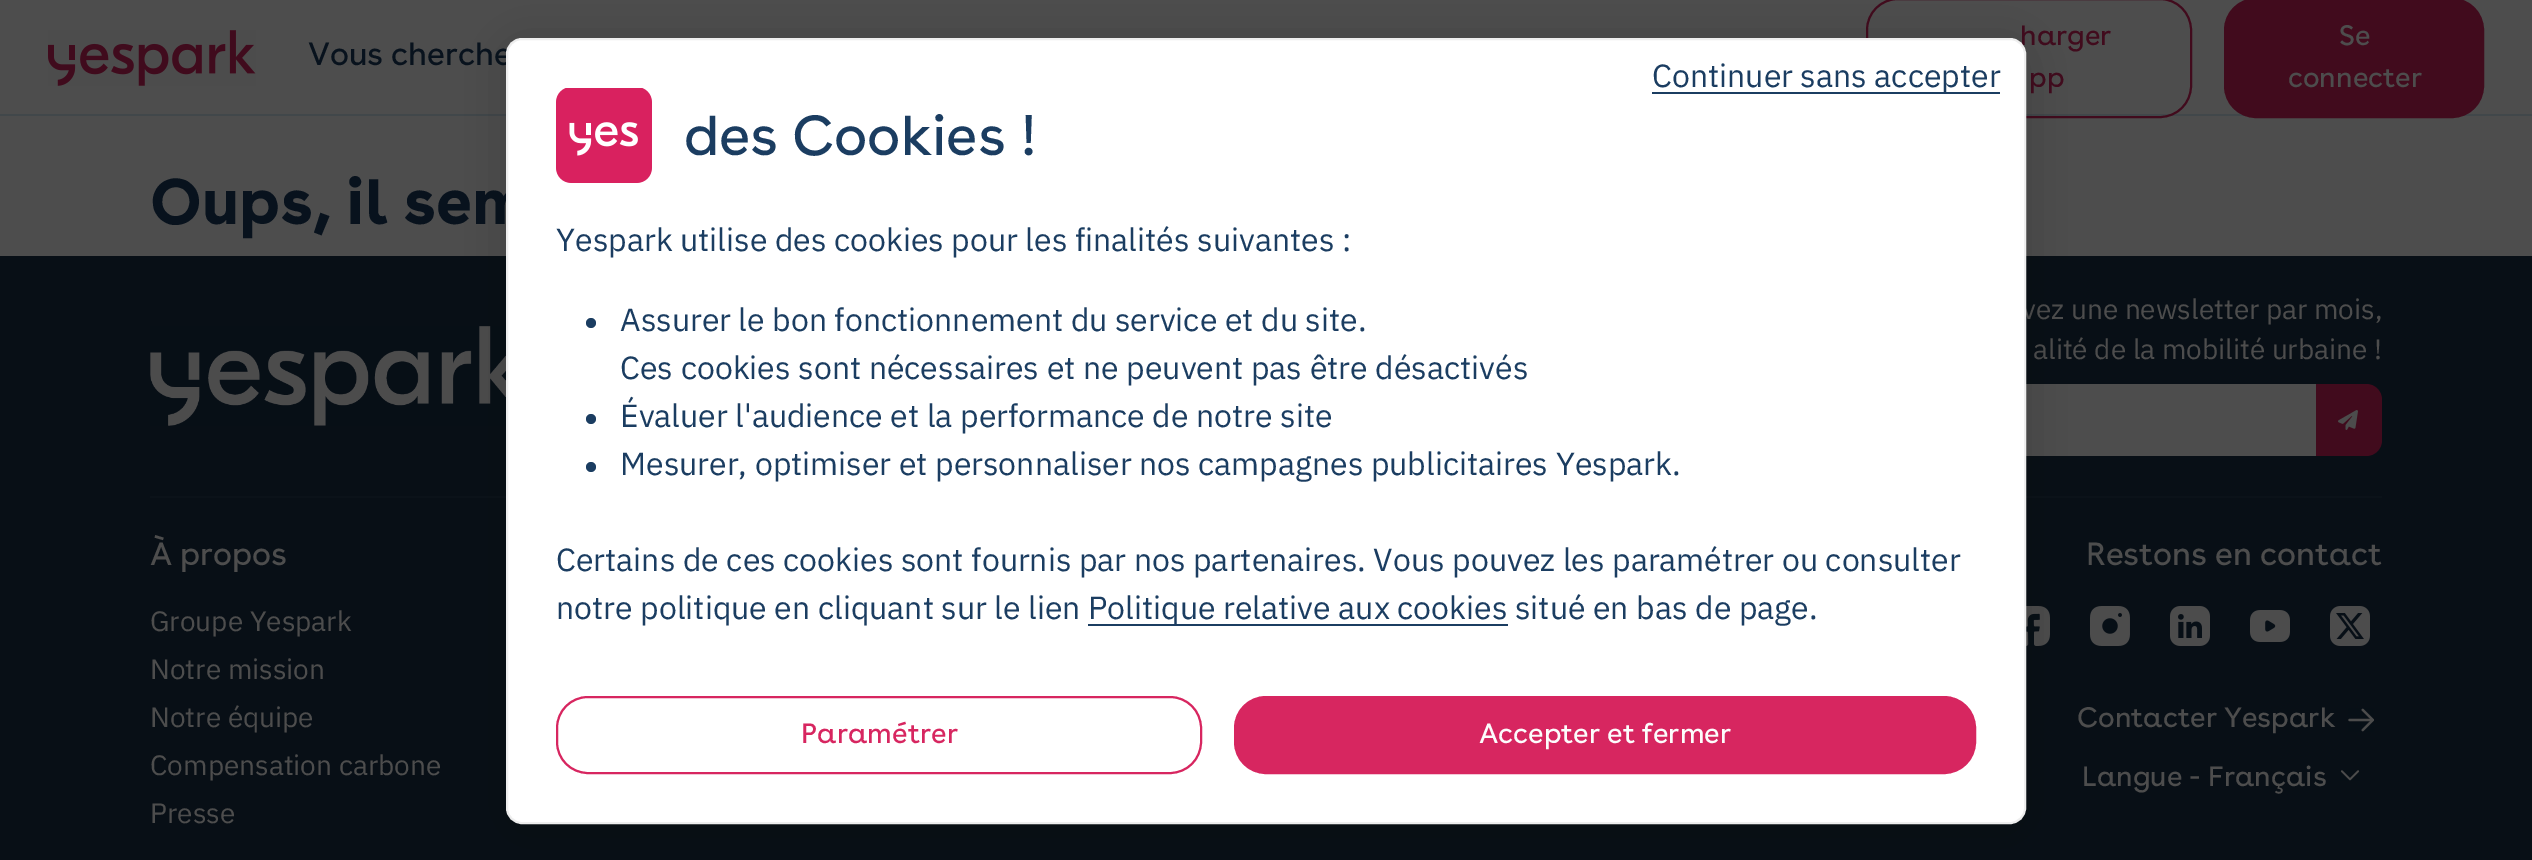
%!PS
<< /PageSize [2532 860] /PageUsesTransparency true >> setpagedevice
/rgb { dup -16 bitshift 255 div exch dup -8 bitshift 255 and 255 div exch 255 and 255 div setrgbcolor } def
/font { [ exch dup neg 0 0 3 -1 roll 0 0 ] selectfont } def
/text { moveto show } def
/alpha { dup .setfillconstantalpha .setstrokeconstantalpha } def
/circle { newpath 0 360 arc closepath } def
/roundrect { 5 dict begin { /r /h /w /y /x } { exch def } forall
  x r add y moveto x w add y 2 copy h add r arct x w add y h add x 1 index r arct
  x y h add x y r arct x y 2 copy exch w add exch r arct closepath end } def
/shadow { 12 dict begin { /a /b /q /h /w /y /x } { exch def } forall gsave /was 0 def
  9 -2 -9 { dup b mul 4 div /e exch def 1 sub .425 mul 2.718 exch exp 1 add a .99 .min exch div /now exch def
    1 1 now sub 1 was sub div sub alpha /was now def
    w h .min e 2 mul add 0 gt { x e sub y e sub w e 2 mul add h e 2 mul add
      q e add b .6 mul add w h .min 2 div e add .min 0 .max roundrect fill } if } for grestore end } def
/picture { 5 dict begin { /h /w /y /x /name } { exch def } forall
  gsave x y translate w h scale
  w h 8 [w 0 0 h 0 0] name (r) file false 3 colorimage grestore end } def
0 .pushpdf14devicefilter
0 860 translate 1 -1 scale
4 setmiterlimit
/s1 { /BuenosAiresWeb-Regular 32 font 16#08121D rgb } def
/s2 { /BuenosAiresWeb-Regular 28 font 16#410B1D rgb } def
/s3 { /BuenosAiresWeb-Regular 28 font 16#4D4D4D rgb } def
/s4 { /BuenosAiresWeb-Bold 64 font 16#08121D rgb } def
/s5 { /IBMPlexSans-Regular 28 font 16#4D4D4D rgb } def
/s6 { /BuenosAiresWeb-Regular 32 font 16#4D4D4D rgb } def
/s7 { /IBMPlexSans-Regular 32 font 16#1B3D61 rgb } def
/s8 { /BuenosAiresWeb-Regular 56 font 16#1B3D61 rgb } def
/s9 { /BuenosAiresWeb-Regular 28 font 16#D72660 rgb } def
/s10 { /BuenosAiresWeb-Regular 28 font 16#FCFCFC rgb } def
16#4D4D4D rgb
0 0 2532 860 rectfill
16#41474A rgb
0 114 2532 2 rectfill
(pic1.raw) 48 30 208 56 picture
s1
(Vous cherche) 308 65 text
16#410B1D rgb
2 setlinewidth
1867 -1 324 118 31 roundrect stroke
s2
(harger) 2020 45 text
(pp) 2029 87 text
2225 -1 258 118 31 roundrect gsave fill grestore
stroke
s3
(Se) 2339 45 text
(connecter) 2288 87 text
s4
(Oups, il sem) 150 224 text
16#080F16 rgb
0 256 2532 604 rectfill
(pic2.raw) 150 326 356 100 picture
s5
(vez une newsletter par mois,) 2022 319 text
(alité de la mobilité urbaine !) 2033 359 text
16#410B1D rgb
2314 384 moveto 2366 384 lineto 2375 384 2382 391 2382 400 curveto 2382 440 lineto 2382 449 2375 456 2366 456 curveto 2314 456 lineto closepath fill
16#4D4D4D rgb
2026 384 290 72 rectfill
(pic3.raw) 2338 410 20 20 picture
16#0B1219 rgb
150 496 2232 2 rectfill
s6
(À propos) 150 565 text
s5
(Groupe Yespark) 150 631 text
(Notre mission) 150 679 text
(Notre équipe) 150 727 text
(Compensation carbone) 150 775 text
(Presse) 150 823 text
s6
(Restons en contact) 2086 565 text
(pic4.raw) 2026 606 24 40 picture
(pic5.raw) 2090 606 40 40 picture
(pic6.raw) 2170 606 40 40 picture
(pic7.raw) 2250 610 40 32 picture
(pic8.raw) 2330 606 40 40 picture
s3
(Contacter Yespark) 2077 727 text
(pic9.raw) 2348 708 26 24 picture
(Langue - Français) 2082 786 text
(pic10.raw) 2340 770 20 11 picture
16#000000 rgb
506 46 1520 786 16 24 0.15 shadow
16#FFFFFF rgb
507 39 1518 784 15 roundrect gsave fill grestore
16#EEEEEE rgb
stroke
16#1B3D61 rgb
1652 92 348 2 rectfill
s7
(Continuer sans accepter) 1652 87 text
(pic11.raw) 556 88 96 95 picture
s8
(des Cookies !) 684 155 text
s7
(Yespark utilise des cookies pour les finalités suivantes :) 556 251 text
591 323 5 circle fill
(Assurer le bon fonctionnement du service et du site.) 620 331 text
(Ces cookies sont nécessaires et ne peuvent pas être désactivés) 620 379 text
591 419 5 circle fill
(Évaluer l'audience et la performance de notre site) 620 427 text
591 467 5 circle fill
(Mesurer, optimiser et personnaliser nos campagnes publicitaires Yespark.) 620 475 text
(Certains de ces cookies sont fournis par nos partenaires. Vous pouvez les paramétrer ou consulter) 556 571 text
(notre politique en cliquant sur le lien) 556 619 text
1088 624 420 2 rectfill
(Politique relative aux cookies situé en bas de page.) 1088 619 text
16#D72660 rgb
557 697 644 76 31 roundrect stroke
s9
(Paramétrer) 801 743 text
1235 697 740 76 31 roundrect gsave fill grestore
stroke
s10
(Accepter et fermer) 1479 743 text
.poppdf14devicefilter showpage
